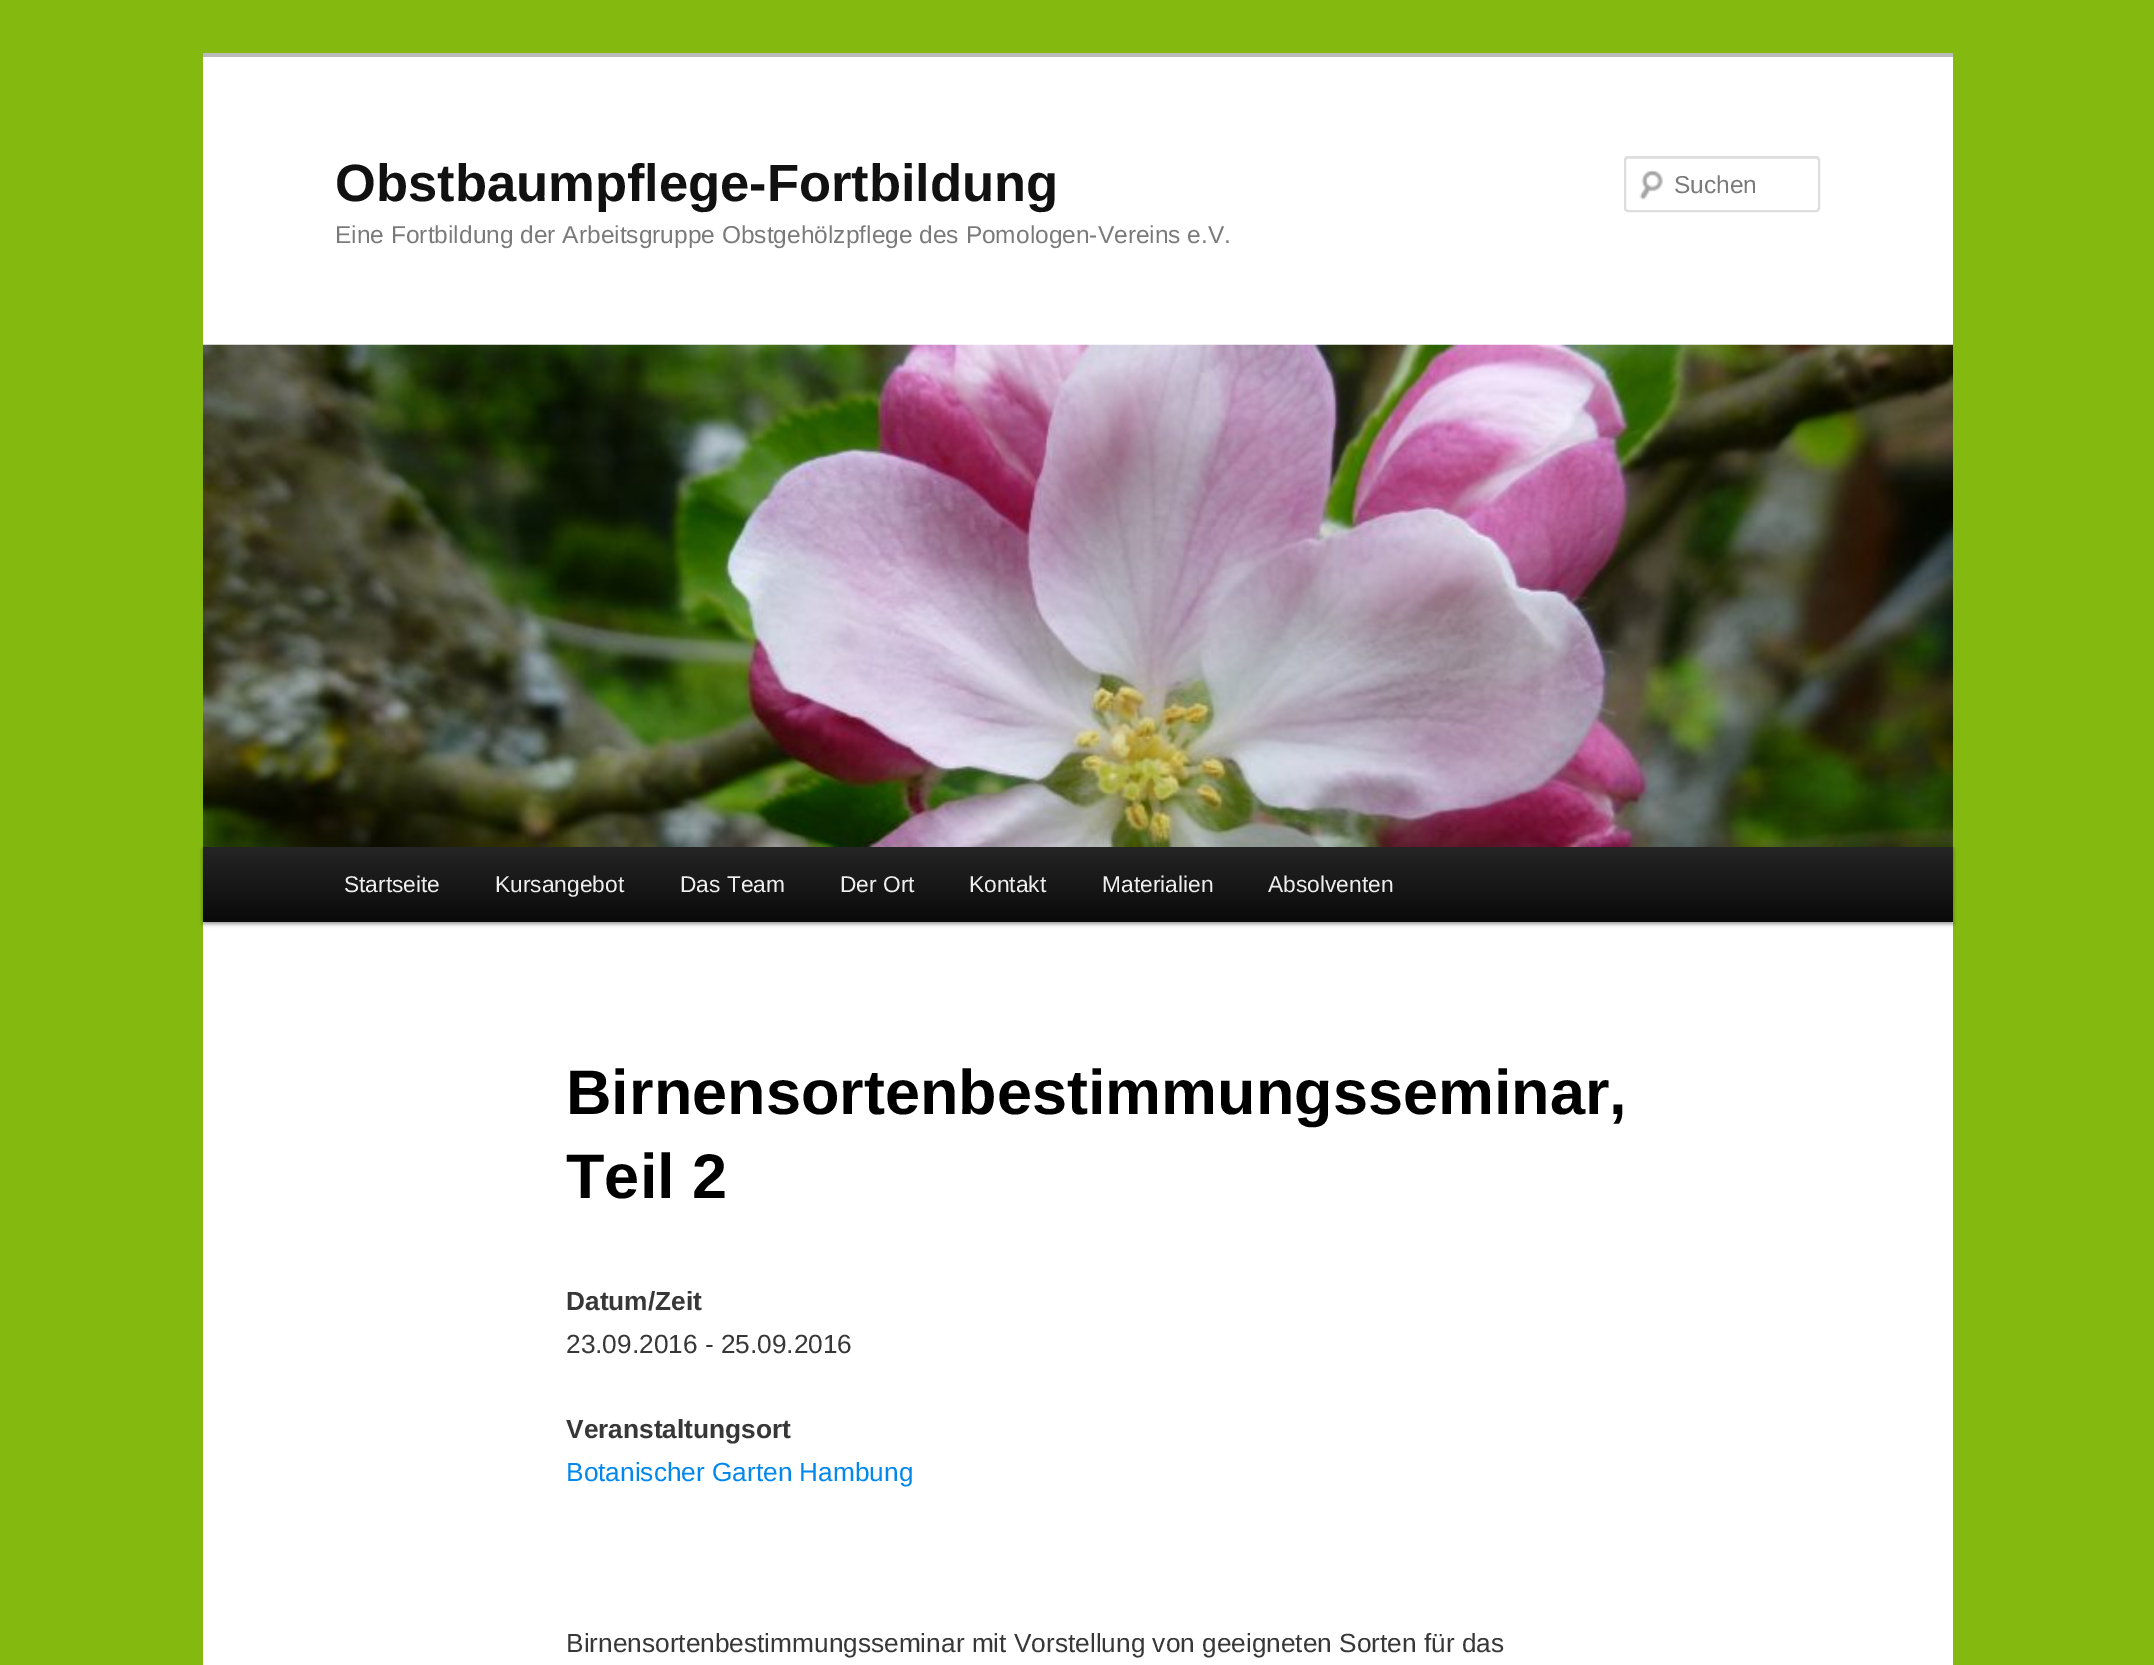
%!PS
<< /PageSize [2154 1665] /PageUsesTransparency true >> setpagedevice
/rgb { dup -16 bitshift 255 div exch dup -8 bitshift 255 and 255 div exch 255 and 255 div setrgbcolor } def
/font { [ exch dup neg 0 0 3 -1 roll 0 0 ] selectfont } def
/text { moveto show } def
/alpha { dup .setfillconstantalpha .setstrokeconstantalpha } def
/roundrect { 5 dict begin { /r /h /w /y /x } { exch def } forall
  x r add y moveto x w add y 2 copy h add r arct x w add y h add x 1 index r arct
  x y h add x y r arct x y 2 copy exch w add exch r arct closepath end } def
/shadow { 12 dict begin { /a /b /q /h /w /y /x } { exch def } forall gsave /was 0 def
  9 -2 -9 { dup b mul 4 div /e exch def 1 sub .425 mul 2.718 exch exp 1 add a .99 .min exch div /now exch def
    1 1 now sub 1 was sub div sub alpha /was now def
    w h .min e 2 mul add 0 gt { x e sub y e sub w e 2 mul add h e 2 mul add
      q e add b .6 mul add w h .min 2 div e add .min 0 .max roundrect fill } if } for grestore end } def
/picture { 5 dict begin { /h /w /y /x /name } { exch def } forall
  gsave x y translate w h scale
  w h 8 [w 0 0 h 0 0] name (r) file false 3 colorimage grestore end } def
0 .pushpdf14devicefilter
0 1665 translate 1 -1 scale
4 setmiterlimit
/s1 { /LiberationSans-Bold 52.5 font 16#111111 rgb } def
/s2 { /LiberationSans-Regular 24.5 font 16#7A7A7A rgb } def
/s3 { /LiberationSans-Regular 22.75 font 16#EEEEEE rgb } def
/s4 { /LiberationSans-Bold 63 font 16#000000 rgb } def
/s5 { /LiberationSans-Bold 26.25 font 16#373737 rgb } def
/s6 { /LiberationSans-Regular 26.25 font 16#373737 rgb } def
/s7 { /LiberationSans-Regular 26.25 font 16#0287ED rgb } def
16#84BA10 rgb
0 0 2154 1665 rectfill
16#FFFFFF rgb
203 57 1750 1608 rectfill
16#BBBBBB rgb
203 53 1750 4 rectfill
s1
(Obstbaumpflege-Fortbildung) 335 201 text
s2
(Eine Fortbildung der Arbeitsgruppe Obstgehölzpflege des Pomologen-Vereins e.V.) 335 243 text
(pic1.raw) 1639 170 24 30 picture
16#E6E6E6 rgb
1628 159 moveto 1816 159 lineto 1818 160 lineto 1818 161 lineto 1818 160 lineto 1818 159 1817 158 1816 158 curveto 1628 158 lineto 1627 158 1626 159 1626 160 curveto 1626 161 lineto 1626 160 1627 159 1628 159 curveto closepath fill
16#DDDDDD rgb
2 setlinewidth
1625 157 194 54 3 roundrect stroke
s2
(Suchen) 1674 193 text
16#000000 rgb
203 849 1750 75 0 2 0.4 shadow
(pic2.raw) 203 344 1750 503 picture
gsave 203 847 moveto 1953 847 lineto 1953 922 lineto 203 922 lineto closepath clip newpath
<< /ShadingType 2 /ColorSpace /DeviceRGB /Coords [1078 847 1078 922] /Extend [true true] /Function << /FunctionType 2 /Domain [0 1] /C0 [0.145 0.145 0.145] /C1 [0.039 0.039 0.039] /N 1 >> >> shfill grestore
s3
(Startseite) 344 892 text
(Kursangebot) 495 892 text
(Das Team) 680 892 text
(Der Ort) 840 892 text
(Kontakt) 969 892 text
(Materialien) 1102 892 text
(Absolventen) 1268 892 text
s4
(Birnensortenbestimmungsseminar,) 566 1114 text
(Teil 2) 566 1198 text
s5
(Datum/Zeit) 566 1310 text
s6
(23.09.2016 - 25.09.2016) 566 1353 text
s5
(Veranstaltungsort) 566 1438 text
s7
(Botanischer Garten Hambung) 566 1481 text
s6
(Birnensortenbestimmungsseminar mit Vorstellung von geeigneten Sorten für das) 566 1652 text
.poppdf14devicefilter showpage
